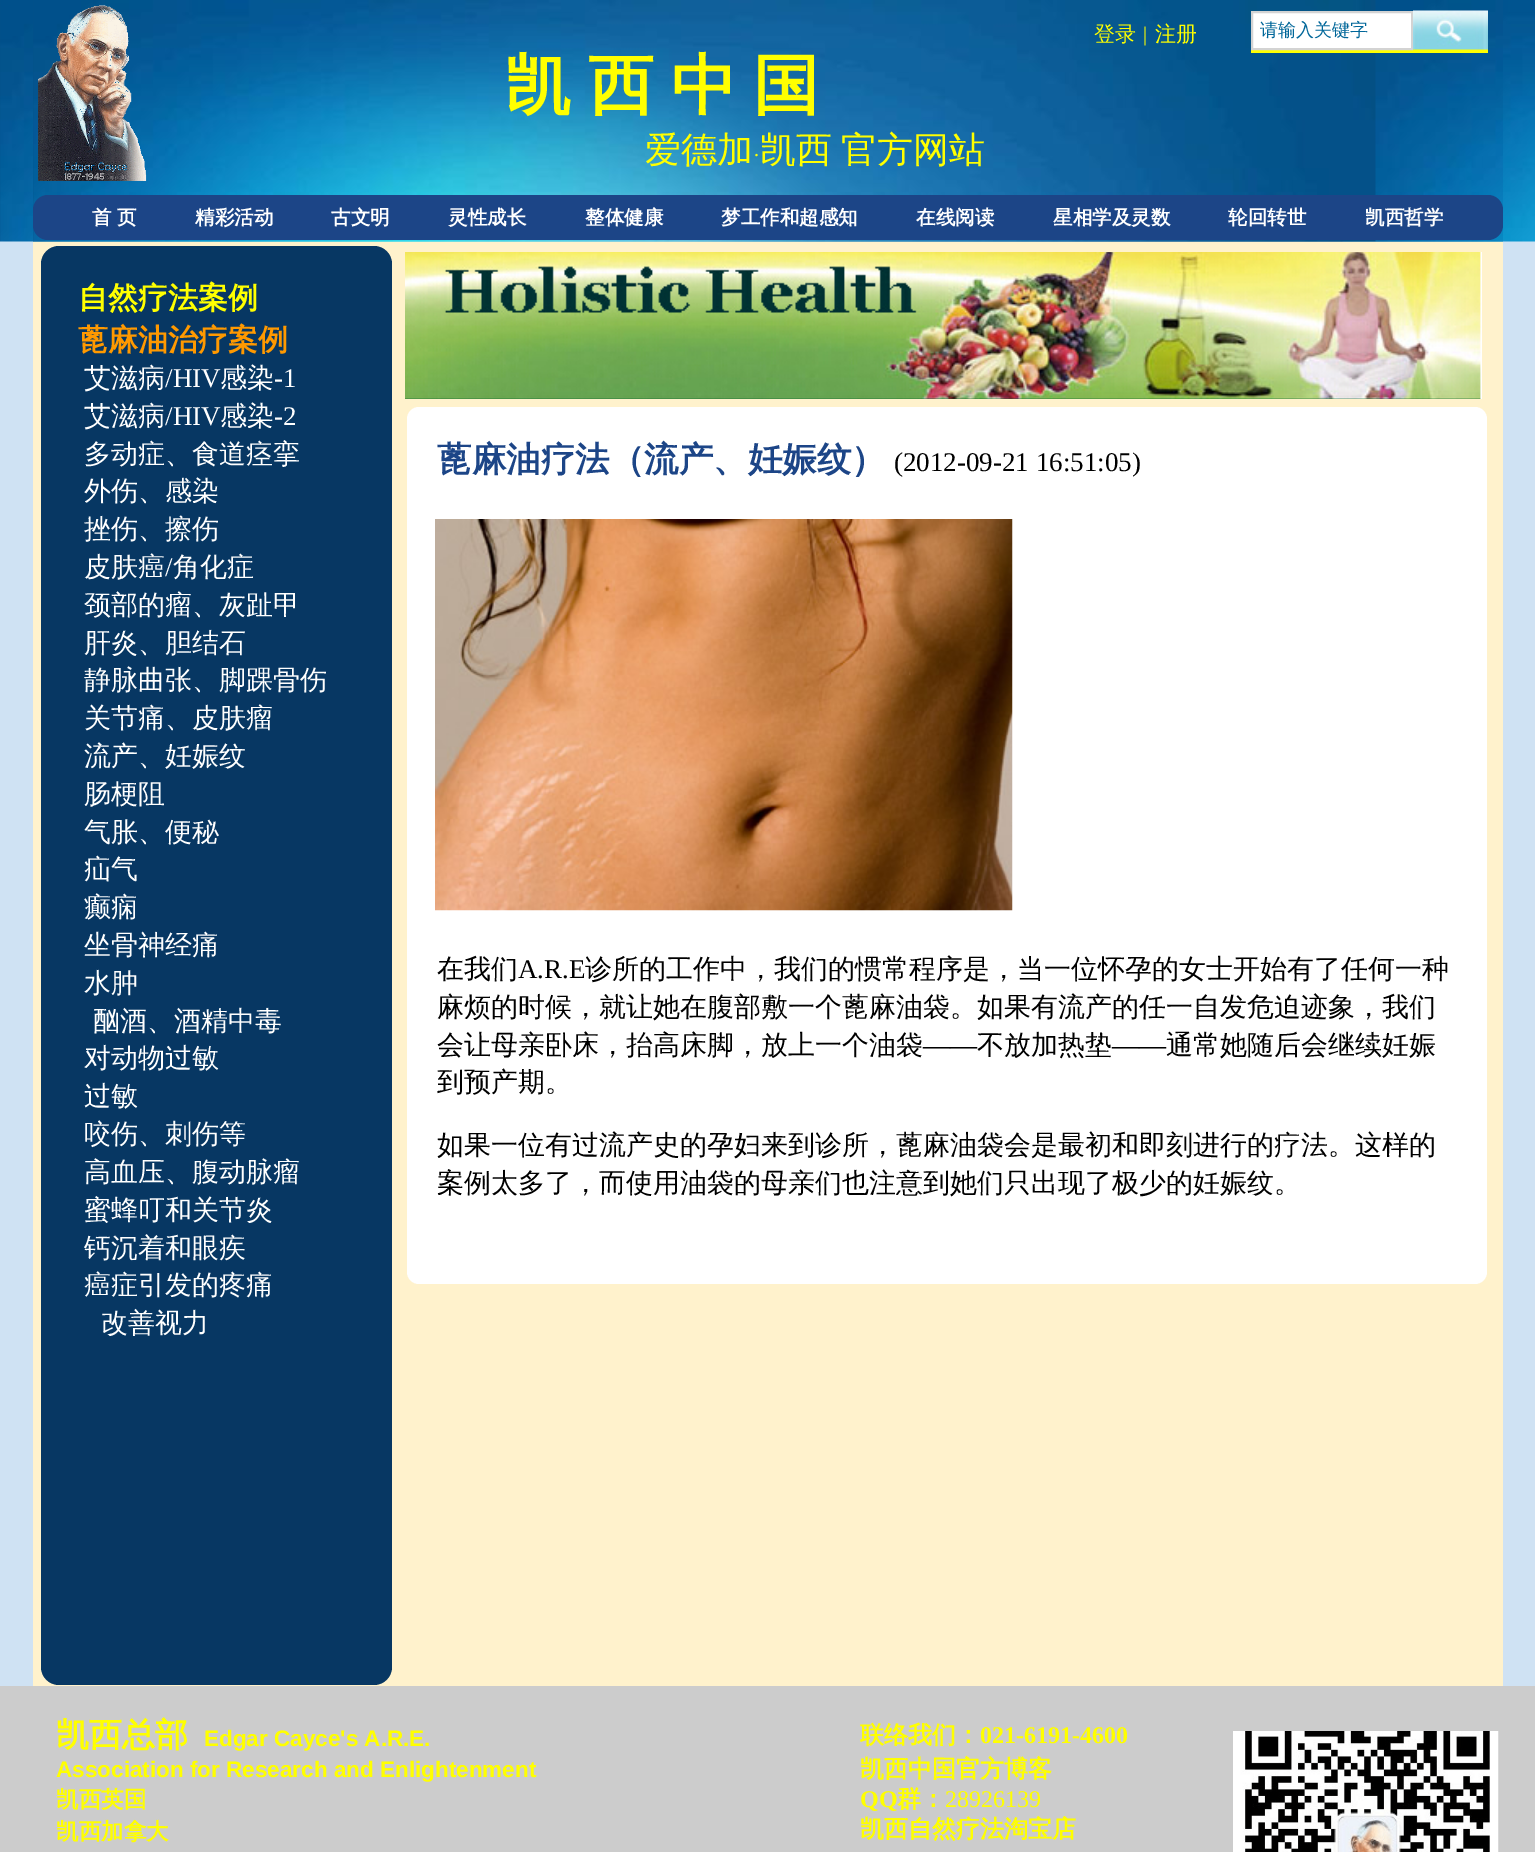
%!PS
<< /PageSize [1535 1852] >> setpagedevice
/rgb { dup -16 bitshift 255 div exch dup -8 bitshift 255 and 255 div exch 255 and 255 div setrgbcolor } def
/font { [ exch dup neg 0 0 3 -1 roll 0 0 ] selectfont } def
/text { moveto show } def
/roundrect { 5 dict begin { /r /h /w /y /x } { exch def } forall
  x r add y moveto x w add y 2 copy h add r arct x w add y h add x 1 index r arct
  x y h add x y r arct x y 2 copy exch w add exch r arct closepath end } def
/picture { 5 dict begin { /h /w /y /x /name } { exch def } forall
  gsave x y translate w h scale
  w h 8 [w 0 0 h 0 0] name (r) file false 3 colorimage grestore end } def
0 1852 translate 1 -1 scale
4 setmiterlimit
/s1 { /WenQuanYiZenHei-Medium 21 font 16#FFFF00 rgb } def
/s2 { /LiberationSerif-Regular 21 font 16#FFFF00 rgb } def
/s3 { /WenQuanYiZenHei-Medium 18 font 16#006699 rgb } def
/s4 { /WenQuanYiZenHei-Medium 36 font 16#FFFF00 rgb } def
/s5 { /WenQuanYiZenHei-Bold 19.5 font 16#FFFFFF rgb } def
/s6 { /WenQuanYiZenHei-Bold 30 font 16#FFFF00 rgb } def
/s7 { /WenQuanYiZenHei-Bold 30 font 16#FF9900 rgb } def
/s8 { /WenQuanYiZenHei-Medium 27 font 16#FFFFFF rgb } def
/s9 { /LiberationSerif-Regular 27 font 16#FFFFFF rgb } def
/s10 { /WenQuanYiZenHei-Bold 34.5 font 16#1C4587 rgb } def
/s11 { /LiberationSerif-Regular 27 font 16#000000 rgb } def
/s12 { /WenQuanYiZenHei-Medium 27 font 16#000000 rgb } def
/s13 { /WenQuanYiZenHei-Bold 33 font 16#FFFF00 rgb } def
/s14 { /LiberationSans-Bold 22.5 font 16#FFFF00 rgb } def
/s15 { /WenQuanYiZenHei-Bold 22.5 font 16#FFFF00 rgb } def
/s16 { /WenQuanYiZenHei-Bold 24 font 16#FFFF00 rgb } def
/s17 { /LiberationSerif-Bold 24 font 16#FFFF00 rgb } def
/s18 { /LiberationSerif-Regular 24 font 16#FFFF00 rgb } def
16#CFE2F3 rgb
0 0 1535 1852 rectfill
16#FFF2CC rgb
33 241 1470 1445 rectfill
(pic1.raw) 0 0 1535 242 picture
(pic2.raw) 33 0 1470 242 picture
(pic3.raw) 38 5 109 176 picture
s1
(登录) 1094 41 text
s2
(|) 1143 41 text
s1
(注册) 1155 41 text
1251 49 237 4 rectfill
16#FFFFFF rgb
1252 12 moveto 1412 12 lineto 1412 49 lineto 1252 49 lineto closepath gsave fill grestore
16#D3D3D3 rgb
2 setlinewidth
stroke
s3
(请输入关键字) 1260 36 text
(pic4.raw) 1413 10 75 40 picture
/WenQuanYiZenHei-Bold 66 font
16#FFFF00 rgb
505 108 moveto -3 0 32 (凯 西 中 国) widthshow
s4
(爱德加) 645 162 text
s2
(·) 753 162 text
/WenQuanYiZenHei-Medium 36 font
760 162 moveto -2 0 32 (凯西 官方网站) widthshow
16#1C4587 rgb
33 195 1470 45 15 roundrect fill
s5
(首) 92 224 text
(页) 117 224 text
(精彩活动) 195 224 text
(古文明) 331 224 text
(灵性成长) 448 224 text
(整体健康) 585 224 text
(梦工作和超感知) 721 224 text
(在线阅读) 916 224 text
(星相学及灵数) 1053 224 text
(轮回转世) 1228 224 text
(凯西哲学) 1365 224 text
16#073763 rgb
41 246 351 1439 18 roundrect fill
s6
(自然疗法案例) 78 308 text
s7
(蓖麻油治疗案例) 78 350 text
s8
(艾滋病) 84 387 text
s9
(/HIV) 165 387 text
s8
(感染) 220 387 text
s9
(-1) 274 387 text
s8
(艾滋病) 84 425 text
s9
(/HIV) 165 425 text
s8
(感染) 220 425 text
s9
(-2) 274 425 text
s8
(多动症、食道痉挛) 84 463 text
(外伤、感染) 84 500 text
(挫伤、擦伤) 84 538 text
(皮肤癌) 84 576 text
s9
(/) 165 576 text
s8
(角化症) 173 576 text
(颈部的瘤、灰趾甲) 84 614 text
(肝炎、胆结石) 84 652 text
(静脉曲张、脚踝骨伤) 84 689 text
(关节痛、皮肤瘤) 84 727 text
(流产、妊娠纹) 84 765 text
(肠梗阻) 84 803 text
(气胀、便秘) 84 841 text
(疝气) 84 878 text
(癫痫) 84 916 text
(坐骨神经痛) 84 954 text
(水肿) 84 992 text
(酗酒、酒精中毒) 93 1030 text
(对动物过敏) 84 1067 text
(过敏) 84 1105 text
(咬伤、刺伤等) 84 1143 text
(高血压、腹动脉瘤) 84 1181 text
(蜜蜂叮和关节炎) 84 1219 text
(钙沉着和眼疾) 84 1257 text
(癌症引发的疼痛) 84 1294 text
(改善视力) 101 1332 text
(pic5.raw) 405 252 1077 147 picture
407 407 1080 877 12 roundrect fill
s10
(蓖麻油疗法（流产、妊娠纹）) 437 471 text
s11
(\(2012-09-21 16:51:05\)) 894 471 text
s12
(在我们) 437 978 text
s11
(A.R.E) 518 978 text
s12
(诊所的工作中，我们的惯常程序是，当一位怀孕的女士开始有了任何一种) 585 978 text
(麻烦的时候，就让她在腹部敷一个蓖麻油袋。如果有流产的任一自发危迫迹象，我们) 437 1016 text
(会让母亲卧床，抬高床脚，放上一个油袋) 437 1054 text
s11
(——) 923 1054 text
s12
(不放加热垫) 977 1054 text
s11
(——) 1112 1054 text
s12
(通常她随后会继续妊娠) 1166 1054 text
(到预产期。) 437 1091 text
(如果一位有过流产史的孕妇来到诊所，蓖麻油袋会是最初和即刻进行的疗法。这样的) 437 1154 text
(案例太多了，而使用油袋的母亲们也注意到她们只出现了极少的妊娠纹。) 437 1192 text
(pic6.raw) 435 519 578 392 picture
16#CCCCCC rgb
0 1686 1535 166 rectfill
s13
(凯西总部) 56 1746 text
s14
(Edgar Cayce's A.R.E.) 204 1746 text
(Association for Research and Enlightenment) 56 1777 text
s15
(凯西英国) 56 1807 text
(凯西加拿大) 56 1839 text
gsave
860 1719 351 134 rectclip
s16
(联络我们：) 860 1743 text
grestore
s17
(021-6191-4600) 980 1743 text
s16
(凯西中国官方博客) 860 1777 text
s17
(QQ) 860 1807 text
s16
(群：) 897 1807 text
s18
(28926139) 945 1807 text
s16
(凯西自然疗法淘宝店) 860 1837 text
(pic7.raw) 1233 1731 266 121 picture
showpage
